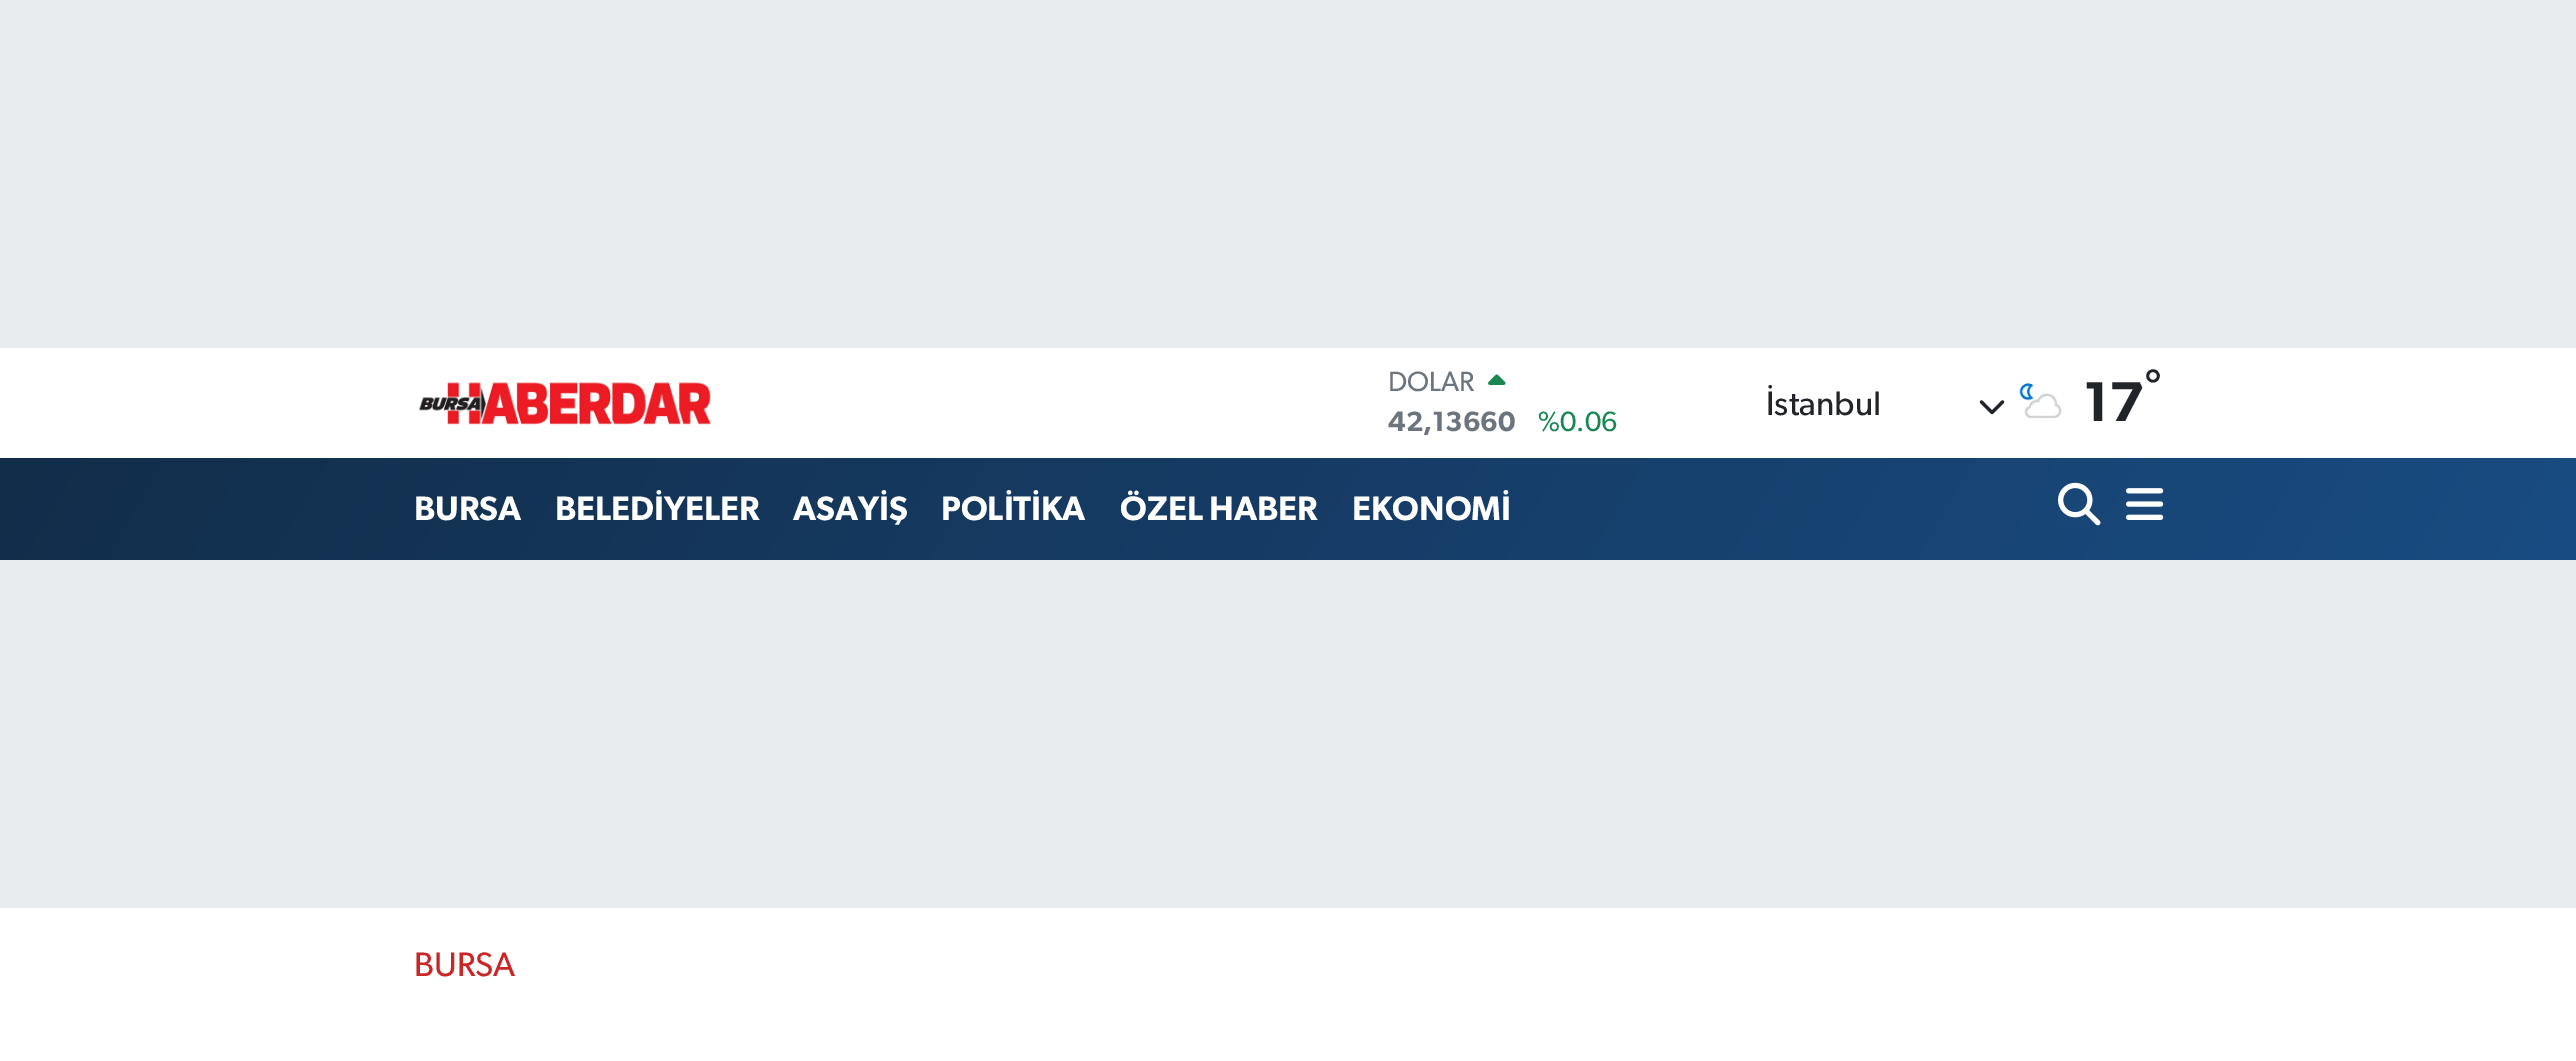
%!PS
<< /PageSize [2576 1061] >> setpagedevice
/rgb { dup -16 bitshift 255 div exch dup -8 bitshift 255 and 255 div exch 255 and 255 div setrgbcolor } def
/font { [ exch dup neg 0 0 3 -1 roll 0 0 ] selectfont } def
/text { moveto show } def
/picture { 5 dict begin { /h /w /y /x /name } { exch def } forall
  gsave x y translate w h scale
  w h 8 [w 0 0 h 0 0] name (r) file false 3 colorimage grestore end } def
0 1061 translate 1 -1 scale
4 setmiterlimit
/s1 { /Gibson-Regular 28 font 16#6C757D rgb } def
/s2 { /Gibson-SemiBold 28 font 16#6C757D rgb } def
/s3 { /Gibson-Regular 28 font 16#198754 rgb } def
/s4 { /Gibson-Regular 34 font 16#212529 rgb } def
/s5 { /Gibson-SemiBold 42 font 16#212529 rgb } def
/s6 { /Gibson-SemiBold 56 font 16#212529 rgb } def
/s7 { /Gibson-SemiBold 34 font 16#FFFFFF rgb } def
/s8 { /Gibson-Regular 34 font 16#CA2527 rgb } def
16#E9ECEF rgb
0 0 2576 1061 rectfill
16#FFFFFF rgb
0 348 2576 110 rectfill
(pic1.raw) 418 382 294 43 picture
s1
(DOLAR) 1388 391 text
(pic2.raw) 1488 374 18 11 picture
s2
(42,13660) 1388 431 text
s3
(%0.06) 1538 431 text
s4
(İstanbul) 1766 415 text
(pic3.raw) 1979 400 26 15 picture
(pic4.raw) 2019 383 43 36 picture
s5
(°) 2144 400 text
s6
(17) 2083 421 text
gsave 0 458 moveto 2576 458 lineto 2576 560 lineto 0 560 lineto closepath clip newpath
<< /ShadingType 2 /ColorSpace /DeviceRGB /Coords [300 -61 2276 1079] /Extend [true true] /Function << /FunctionType 2 /Domain [0 1] /C0 [0.071 0.176 0.29] /C1 [0.098 0.298 0.51] /N 1 >> >> shfill grestore
s7
(BURSA) 414 520 text
(BELEDİYELER) 555 520 text
(ASAYİŞ) 793 520 text
(POLİTİKA) 941 520 text
(ÖZEL HABER) 1120 520 text
(EKONOMİ) 1352 520 text
(pic5.raw) 2058 482 43 44 picture
(pic6.raw) 2126 488 38 32 picture
0 908 2576 153 rectfill
s8
(BURSA) 414 976 text
showpage
